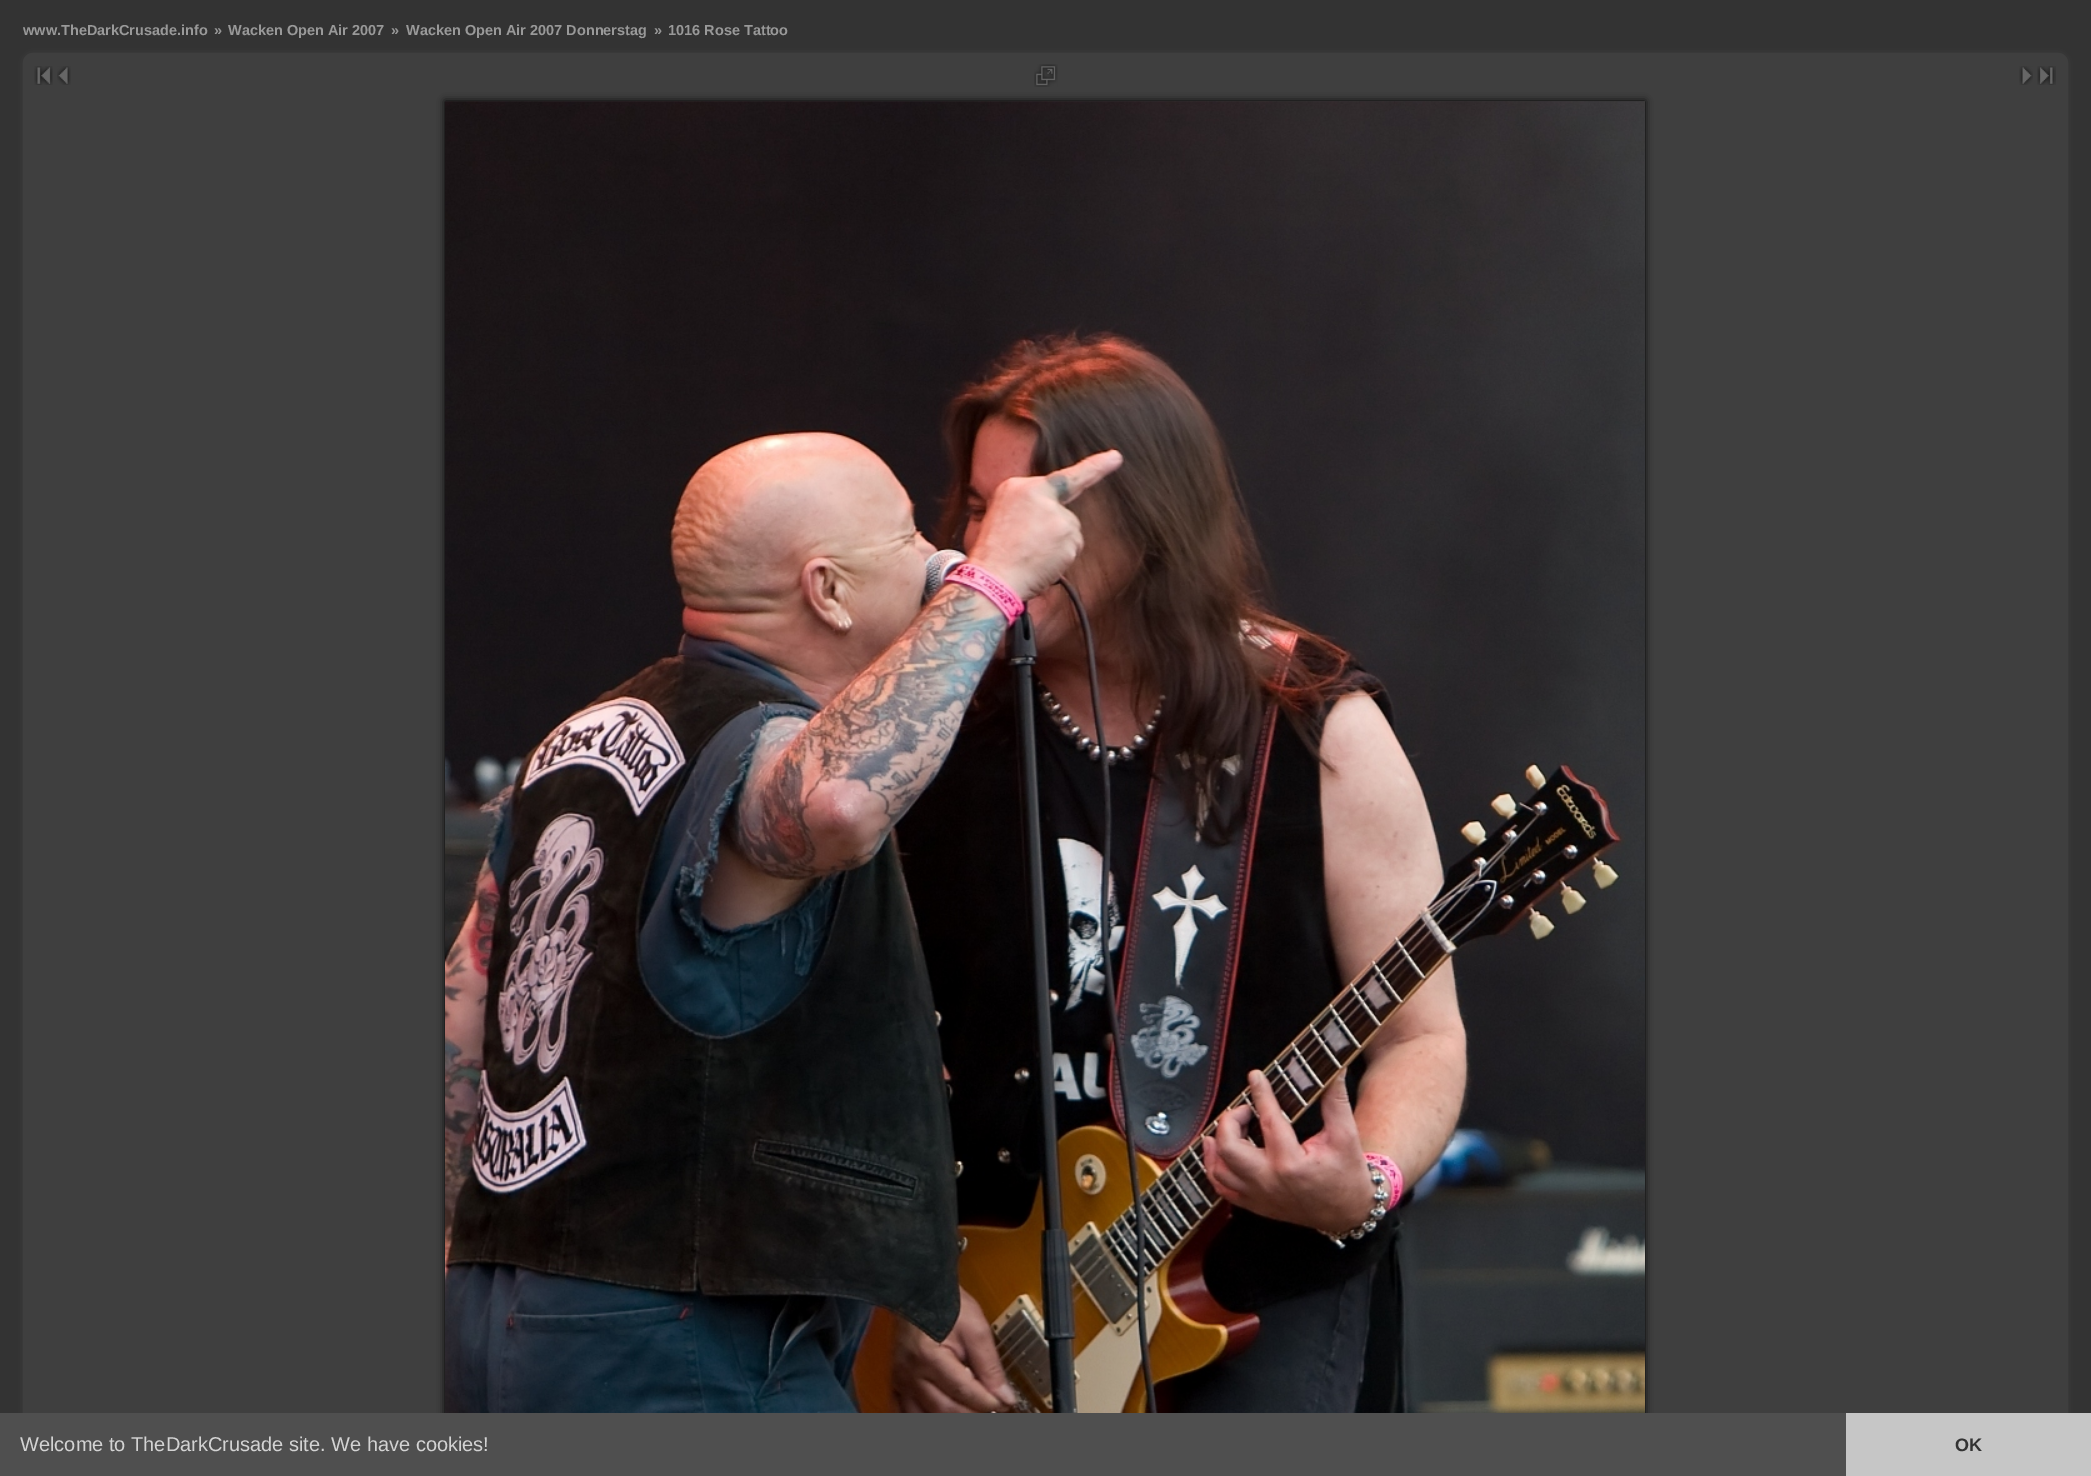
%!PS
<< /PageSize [2091 1476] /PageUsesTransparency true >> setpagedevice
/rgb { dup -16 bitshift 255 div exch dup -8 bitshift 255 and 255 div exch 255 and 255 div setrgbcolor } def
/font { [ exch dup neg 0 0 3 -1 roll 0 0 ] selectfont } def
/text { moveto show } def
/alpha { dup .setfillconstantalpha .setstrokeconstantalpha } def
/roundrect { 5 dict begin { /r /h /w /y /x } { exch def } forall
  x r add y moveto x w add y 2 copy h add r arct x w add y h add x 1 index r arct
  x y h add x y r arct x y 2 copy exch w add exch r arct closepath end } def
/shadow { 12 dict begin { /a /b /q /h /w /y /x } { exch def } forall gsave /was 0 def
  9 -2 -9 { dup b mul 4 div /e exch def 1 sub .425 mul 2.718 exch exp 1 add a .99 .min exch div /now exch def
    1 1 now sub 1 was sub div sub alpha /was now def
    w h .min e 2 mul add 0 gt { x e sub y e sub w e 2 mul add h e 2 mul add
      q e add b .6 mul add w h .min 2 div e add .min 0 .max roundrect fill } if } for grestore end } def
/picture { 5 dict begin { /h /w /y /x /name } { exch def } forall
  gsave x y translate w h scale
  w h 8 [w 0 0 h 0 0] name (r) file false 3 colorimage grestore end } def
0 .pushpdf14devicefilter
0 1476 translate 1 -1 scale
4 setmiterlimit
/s1 { /LiberationSans-Bold 14.5 font 16#999999 rgb } def
/s2 { /LiberationSans-Regular 20 font 16#D3D3D3 rgb } def
/s3 { /LiberationSans-Bold 18 font 16#333333 rgb } def
16#333333 rgb
0 0 2091 1476 rectfill
s1
(www.TheDarkCrusade.info) 23 35 text
(») 214 35 text
(Wacken Open Air 2007) 228 35 text
(») 391 35 text
(Wacken Open Air 2007 Donnerstag) 406 35 text
(») 654 35 text
(1016 Rose Tattoo) 668 35 text
16#3F3F3F rgb
23 53 2045 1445 10 4 1 shadow
23 53 2045 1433 10 roundrect fill
(pic1.raw) 34 66 19 19 picture
(pic2.raw) 57 66 14 19 picture
(pic3.raw) 1034 64 24 23 picture
(pic4.raw) 2019 66 14 19 picture
(pic5.raw) 2037 66 19 19 picture
16#000000 rgb
445 101 1200 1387 0 4 1 shadow
(pic6.raw) 445 101 1200 1312 picture
16#4F4F4F rgb
0 1413 1846 63 rectfill
s2
(Welcome to TheDarkCrusade site. We have cookies!) 20 1451 text
16#C6C6C6 rgb
1846 1413 245 63 rectfill
s3
(OK) 1955 1451 text
.poppdf14devicefilter showpage
